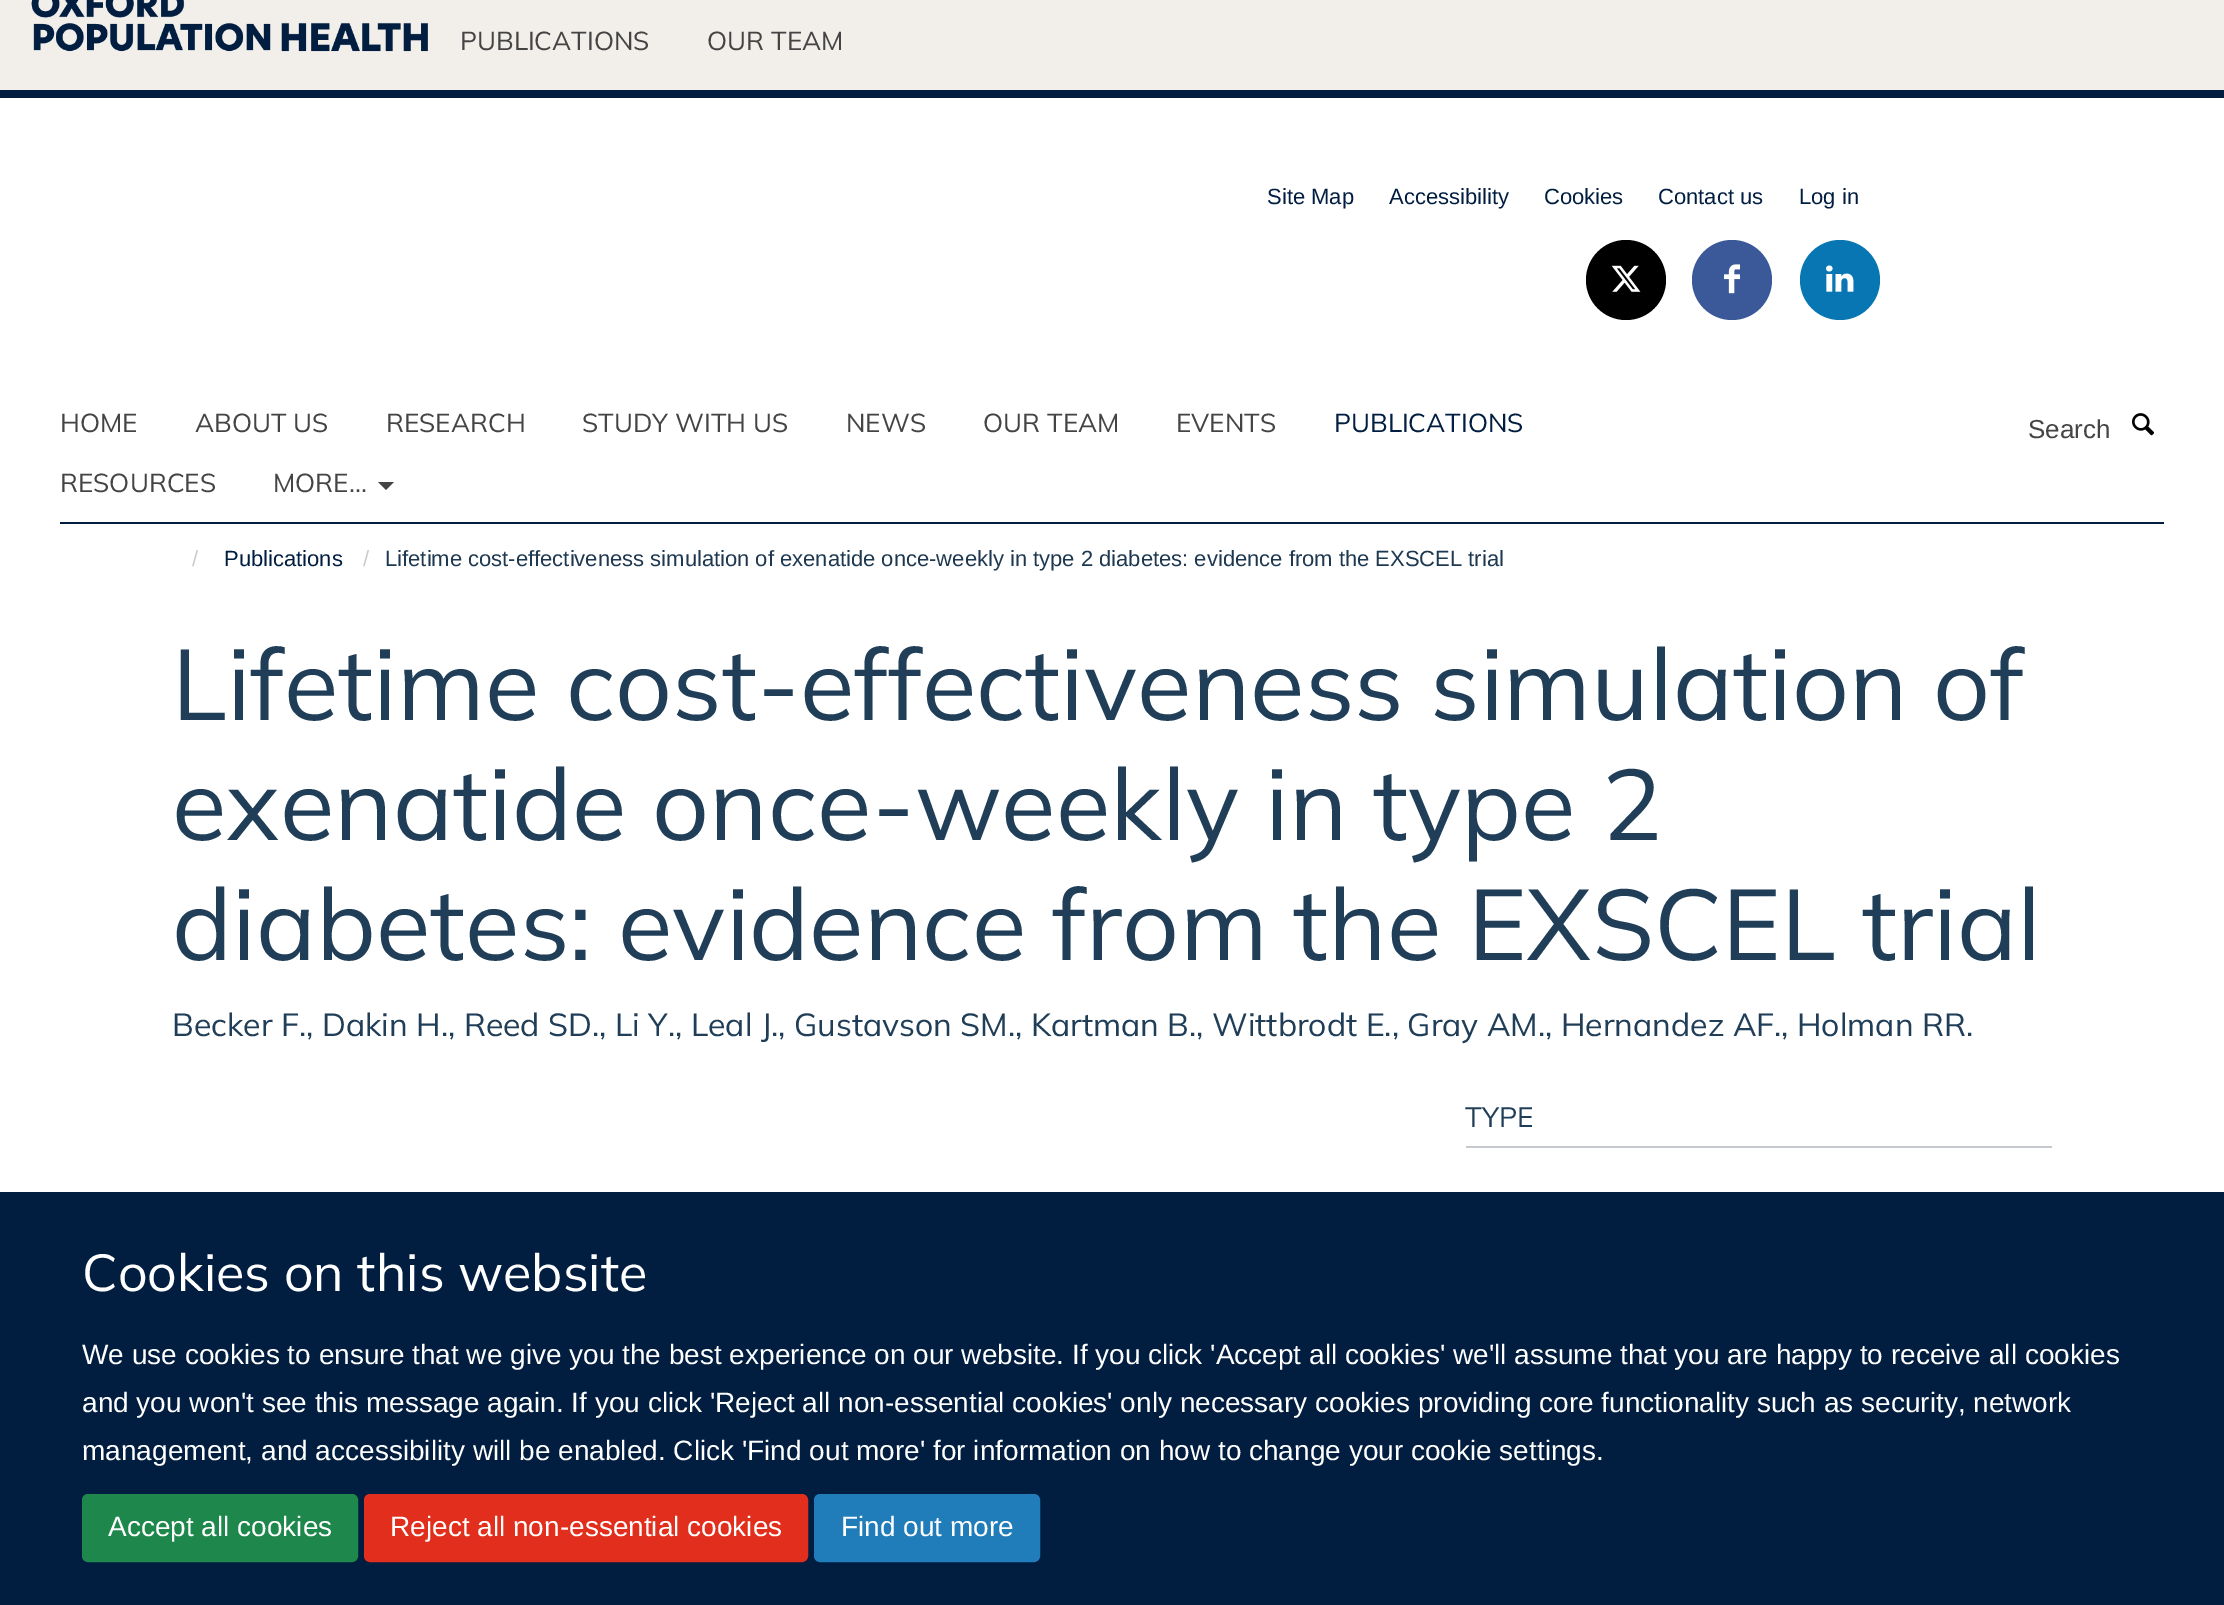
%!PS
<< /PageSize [2224 1605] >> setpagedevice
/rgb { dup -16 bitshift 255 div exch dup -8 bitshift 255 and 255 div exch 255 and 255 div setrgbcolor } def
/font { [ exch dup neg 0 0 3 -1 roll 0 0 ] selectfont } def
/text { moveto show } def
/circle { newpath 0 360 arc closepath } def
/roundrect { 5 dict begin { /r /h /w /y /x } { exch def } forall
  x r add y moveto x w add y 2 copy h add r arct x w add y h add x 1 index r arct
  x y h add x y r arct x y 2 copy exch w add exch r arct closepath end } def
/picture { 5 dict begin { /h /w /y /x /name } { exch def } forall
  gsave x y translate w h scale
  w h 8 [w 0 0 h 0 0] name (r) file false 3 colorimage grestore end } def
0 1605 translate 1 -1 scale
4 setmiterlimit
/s1 { /Mulish-Regular 26 font 16#444444 rgb } def
/s2 { /LiberationSans-Regular 22 font 16#011E41 rgb } def
/s3 { /Mulish-Regular 26 font 16#011E41 rgb } def
/s4 { /LiberationSans-Regular 26 font 16#444444 rgb } def
/s5 { /LiberationSans-Regular 22 font 16#CCCCCC rgb } def
/s6 { /LiberationSans-Regular 22 font 16#1D3850 rgb } def
/s7 { /Mulish-Regular 100 font 16#203E58 rgb } def
/s8 { /Mulish-Regular 32 font 16#203E58 rgb } def
/s9 { /Mulish-Regular 28 font 16#203E58 rgb } def
/s10 { /Mulish-Regular 52 font 16#FFFFFF rgb } def
/s11 { /LiberationSans-Regular 28 font 16#FFFFFF rgb } def
16#FFFFFF rgb
0 0 2224 1605 rectfill
16#F2EFEB rgb
0 0 2224 90 rectfill
16#011E41 rgb
0 90 2224 8 rectfill
(pic1.raw) 31 0 397 52 picture
s1
(PUBLICATIONS) 460 50 text
(OUR TEAM) 707 50 text
s2
(Site Map) 1267 204 text
(Accessibility) 1389 204 text
(Cookies) 1544 204 text
(Contact us) 1658 204 text
(Log in) 1799 204 text
16#000000 rgb
1626 280 40 circle fill
(pic2.raw) 1611 265 30 27 picture
16#3B5998 rgb
1732 280 40 circle fill
(pic3.raw) 1724 264 16 30 picture
16#0976B4 rgb
1840 280 40 circle fill
(pic4.raw) 1826 265 28 27 picture
16#011E41 rgb
60 522 2104 2 rectfill
s1
(HOME) 60 432 text
(ABOUT US) 195 432 text
(RESEARCH) 386 432 text
(STUDY WITH US) 582 432 text
(NEWS) 846 432 text
(OUR TEAM) 983 432 text
(EVENTS) 1176 432 text
s3
(PUBLICATIONS) 1334 432 text
s1
(RESOURCES) 60 492 text
(MORE...) 273 492 text
378 482 moveto 394 482 lineto 386 490 lineto closepath fill
s4
(Search) 2028 438 text
(pic5.raw) 2132 413 23 23 picture
s5
(/) 192 566 text
s2
(Publications) 224 566 text
s5
(/) 363 566 text
s6
(Lifetime cost-effectiveness simulation of exenatide once-weekly in type 2 diabetes: evidence from the EXSCEL trial) 385 566 text
s7
(Lifetime cost-effectiveness simulation of) 172 720 text
(exenatide once-weekly in type 2) 172 840 text
(diabetes: evidence from the EXSCEL trial) 172 960 text
s8
(Becker F., Dakin H., Reed SD., Li Y., Leal J., Gustavson SM., Kartman B., Wittbrodt E., Gray AM., Hernandez AF., Holman RR.) 172 1036 text
16#C6CACF rgb
1466 1146 586 2 rectfill
s9
(TYPE) 1465 1127 text
16#011E41 rgb
0 1192 2224 413 rectfill
s10
(Cookies on this website) 82 1291 text
s11
(We use cookies to ensure that we give you the best experience on our website. If you click 'Accept all cookies' we'll assume that you are happy to receive all cookies) 82 1364 text
(and you won't see this message again. If you click 'Reject all non-essential cookies' only necessary cookies providing core functionality such as security, network) 82 1412 text
(management, and accessibility will be enabled. Click 'Find out more' for information on how to change your cookie settings.) 82 1460 text
16#1E874B rgb
83 1495 274 66 5 roundrect gsave fill grestore
2 setlinewidth
stroke
s11
(Accept all cookies) 108 1536 text
16#E22E1C rgb
365 1495 442 66 5 roundrect gsave fill grestore
stroke
s11
(Reject all non-essential cookies) 390 1536 text
16#217CBA rgb
815 1495 224 66 5 roundrect gsave fill grestore
stroke
s11
(Find out more) 841 1536 text
showpage
